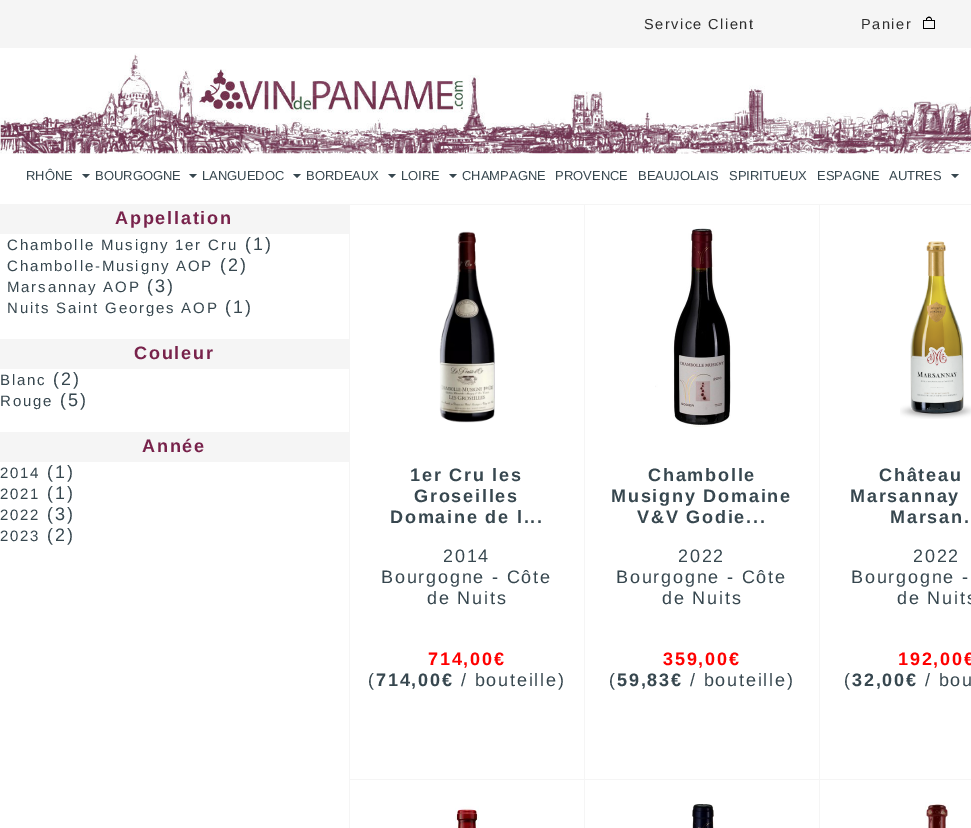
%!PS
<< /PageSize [971 828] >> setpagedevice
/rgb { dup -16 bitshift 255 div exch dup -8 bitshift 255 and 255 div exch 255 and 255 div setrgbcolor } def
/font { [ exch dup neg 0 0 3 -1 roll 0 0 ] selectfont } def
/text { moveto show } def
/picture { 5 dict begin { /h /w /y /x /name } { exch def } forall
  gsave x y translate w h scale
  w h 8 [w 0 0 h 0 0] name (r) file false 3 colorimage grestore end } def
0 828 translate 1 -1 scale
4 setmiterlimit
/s1 { /LiberationSans-Regular 13 font 16#37474F rgb } def
16#FFFFFF rgb
0 0 971 828 rectfill
16#F5F5F5 rgb
0 0 971 48 rectfill
/LiberationSans-Regular 14.5 font
16#2E2E2E rgb
644 29 moveto 1.5 0 (Service Client) ashow
861 29 moveto 1.5 0 (Panier) ashow
(pic1.raw) 923 16 12 13 picture
(pic2.raw) 0 53 971 101 picture
s1
(RHÔNE) 26 180 text
82 174 moveto 90 174 lineto 86 178 lineto closepath fill
(BOURGOGNE) 95 180 text
189 174 moveto 197 174 lineto 193 178 lineto closepath fill
(LANGUEDOC) 202 180 text
293 174 moveto 301 174 lineto 297 178 lineto closepath fill
(BORDEAUX) 306 180 text
388 174 moveto 396 174 lineto 392 178 lineto closepath fill
(LOIRE) 401 180 text
449 174 moveto 457 174 lineto 453 178 lineto closepath fill
(CHAMPAGNE) 462 180 text
(PROVENCE) 555 180 text
(BEAUJOLAIS) 638 180 text
(SPIRITUEUX) 729 180 text
(ESPAGNE) 817 180 text
(AUTRES) 889 180 text
951 174 moveto 959 174 lineto 955 178 lineto closepath fill
16#F5F5F5 rgb
0 204 349 30 rectfill
/LiberationSans-Bold 18 font
16#78224B rgb
115 224 moveto 1.8 0 (Appellation) ashow
/LiberationSans-Regular 15 font
16#37474F rgb
7 250 moveto 1.8 0 (Chambolle Musigny 1er Cru) ashow
/LiberationSans-Regular 18 font
245 250 moveto 1.8 0 (\(1\)) ashow
/LiberationSans-Regular 15 font
7 271 moveto 1.8 0 (Chambolle-Musigny AOP) ashow
/LiberationSans-Regular 18 font
220 271 moveto 1.8 0 (\(2\)) ashow
/LiberationSans-Regular 15 font
7 292 moveto 1.8 0 (Marsannay AOP) ashow
/LiberationSans-Regular 18 font
147 292 moveto 1.8 0 (\(3\)) ashow
/LiberationSans-Regular 15 font
7 313 moveto 1.8 0 (Nuits Saint Georges AOP) ashow
/LiberationSans-Regular 18 font
225 313 moveto 1.8 0 (\(1\)) ashow
16#F5F5F5 rgb
0 339 349 30 rectfill
/LiberationSans-Bold 18 font
16#78224B rgb
134 359 moveto 1.8 0 (Couleur) ashow
/LiberationSans-Regular 15 font
16#37474F rgb
0 385 moveto 1.8 0 (Blanc) ashow
/LiberationSans-Regular 18 font
53 385 moveto 1.8 0 (\(2\)) ashow
/LiberationSans-Regular 15 font
0 406 moveto 1.8 0 (Rouge) ashow
/LiberationSans-Regular 18 font
60 406 moveto 1.8 0 (\(5\)) ashow
16#F5F5F5 rgb
0 432 349 30 rectfill
/LiberationSans-Bold 18 font
16#78224B rgb
142 452 moveto 1.8 0 (Année) ashow
/LiberationSans-Regular 15 font
16#37474F rgb
0 478 moveto 1.8 0 (2014) ashow
/LiberationSans-Regular 18 font
47 478 moveto 1.8 0 (\(1\)) ashow
/LiberationSans-Regular 15 font
0 499 moveto 1.8 0 (2021) ashow
/LiberationSans-Regular 18 font
47 499 moveto 1.8 0 (\(1\)) ashow
/LiberationSans-Regular 15 font
0 520 moveto 1.8 0 (2022) ashow
/LiberationSans-Regular 18 font
47 520 moveto 1.8 0 (\(3\)) ashow
/LiberationSans-Regular 15 font
0 541 moveto 1.8 0 (2023) ashow
/LiberationSans-Regular 18 font
47 541 moveto 1.8 0 (\(2\)) ashow
16#F5F5F5 rgb
819 204 152 1 rectfill
819 779 152 1 rectfill
819 779 1 49 rectfill
584 779 236 1 rectfill
819 204 1 576 rectfill
584 204 236 1 rectfill
584 779 1 49 rectfill
349 779 236 1 rectfill
584 204 1 576 rectfill
349 204 236 1 rectfill
349 779 1 49 rectfill
349 204 1 576 rectfill
(pic3.raw) 439 231 56 192 picture
/LiberationSans-Bold 18 font
16#37474F rgb
410 481 moveto 1.8 0 (1er Cru les) ashow
414 502 moveto 1.8 0 (Groseilles) ashow
390 523 moveto 1.8 0 (Domaine de l...) ashow
/LiberationSans-Regular 18 font
443 562 moveto 1.8 0 (2014) ashow
381 583 moveto 1.8 0 (Bourgogne - Côte) ashow
427 604 moveto 1.8 0 (de Nuits) ashow
/LiberationSans-Bold 18 font
16#FF0000 rgb
428 665 moveto 1.8 0 (714,00€) ashow
/LiberationSans-Regular 18 font
16#37474F rgb
368 686 moveto 1.8 0 (\() ashow
/LiberationSans-Bold 18 font
376 686 moveto 1.8 0 (714,00€) ashow
/LiberationSans-Regular 18 font
461 686 moveto 1.8 0 (/ bouteille\)) ashow
(pic4.raw) 655 228 76 199 picture
/LiberationSans-Bold 18 font
648 481 moveto 1.8 0 (Chambolle) ashow
611 502 moveto 1.8 0 (Musigny Domaine) ashow
637 523 moveto 1.8 0 (V&V Godie...) ashow
/LiberationSans-Regular 18 font
678 562 moveto 1.8 0 (2022) ashow
616 583 moveto 1.8 0 (Bourgogne - Côte) ashow
662 604 moveto 1.8 0 (de Nuits) ashow
/LiberationSans-Bold 18 font
16#FF0000 rgb
663 665 moveto 1.8 0 (359,00€) ashow
/LiberationSans-Regular 18 font
16#37474F rgb
609 686 moveto 1.8 0 (\() ashow
/LiberationSans-Bold 18 font
617 686 moveto 1.8 0 (59,83€) ashow
/LiberationSans-Regular 18 font
690 686 moveto 1.8 0 (/ bouteille\)) ashow
(pic5.raw) 900 241 71 178 picture
/LiberationSans-Bold 18 font
879 481 moveto 1.8 0 (Château) ashow
850 502 moveto 1.8 0 (Marsannay) ashow
890 523 moveto 1.8 0 (Marsan.) ashow
/LiberationSans-Regular 18 font
913 562 moveto 1.8 0 (2022) ashow
851 583 moveto 1.8 0 (Bourgogne -) ashow
897 604 moveto 1.8 0 (de Nuits) ashow
/LiberationSans-Bold 18 font
16#FF0000 rgb
898 665 moveto 1.8 0 (192,00€) ashow
/LiberationSans-Regular 18 font
16#37474F rgb
844 686 moveto 1.8 0 (\() ashow
/LiberationSans-Bold 18 font
852 686 moveto 1.8 0 (32,00€) ashow
/LiberationSans-Regular 18 font
925 686 moveto 1.8 0 (/ bou) ashow
(pic6.raw) 455 806 24 22 picture
(pic7.raw) 692 804 22 24 picture
(pic8.raw) 925 802 24 26 picture
showpage
